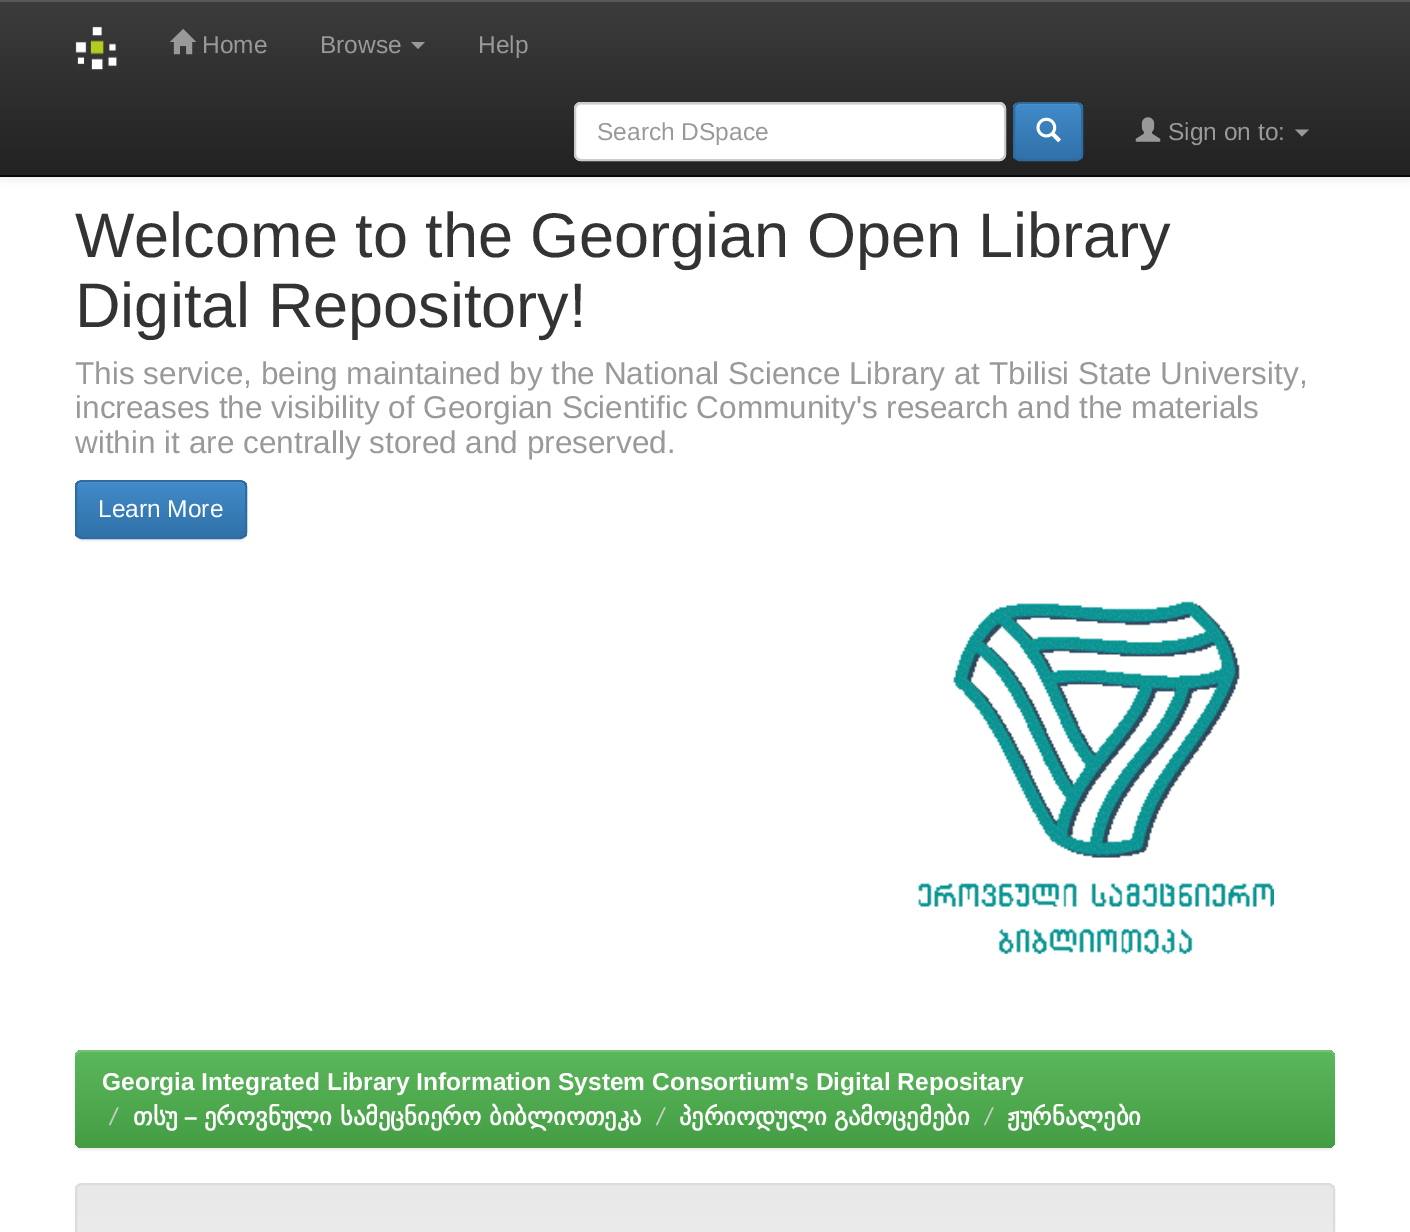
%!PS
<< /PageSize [1410 1232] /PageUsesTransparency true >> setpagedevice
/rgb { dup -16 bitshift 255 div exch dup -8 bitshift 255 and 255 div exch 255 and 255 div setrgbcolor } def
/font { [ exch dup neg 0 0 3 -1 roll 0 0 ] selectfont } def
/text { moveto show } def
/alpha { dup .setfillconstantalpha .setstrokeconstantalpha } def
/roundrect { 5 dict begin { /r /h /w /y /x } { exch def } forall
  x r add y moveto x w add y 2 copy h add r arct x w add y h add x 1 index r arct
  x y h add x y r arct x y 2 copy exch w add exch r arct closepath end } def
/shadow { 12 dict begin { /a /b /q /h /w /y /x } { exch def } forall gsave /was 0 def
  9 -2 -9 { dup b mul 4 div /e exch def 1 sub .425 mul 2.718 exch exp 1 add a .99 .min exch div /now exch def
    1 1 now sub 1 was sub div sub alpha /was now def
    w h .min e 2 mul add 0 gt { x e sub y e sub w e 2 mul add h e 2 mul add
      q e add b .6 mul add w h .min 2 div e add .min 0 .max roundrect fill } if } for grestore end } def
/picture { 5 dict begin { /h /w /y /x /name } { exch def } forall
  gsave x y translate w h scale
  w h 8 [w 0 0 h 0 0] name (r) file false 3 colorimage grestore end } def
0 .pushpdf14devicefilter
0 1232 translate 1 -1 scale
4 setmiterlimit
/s1 { /LiberationSans-Regular 24.5 font 16#999999 rgb } def
/s2 { /LiberationSans-Regular 63 font 16#333333 rgb } def
/s3 { /LiberationSans-Regular 31.5 font 16#999999 rgb } def
/s4 { /LiberationSans-Regular 24.5 font 16#FFFFFF rgb } def
/s5 { /LiberationSans-Bold 24.5 font 16#FFFFFF rgb } def
/s6 { /LiberationSans-Italic 24.5 font 16#CCCCCC rgb } def
/s7 { /DejaVuSans-Bold 24.5 font 16#FFFFFF rgb } def
16#FFFFFF rgb
0 0 1410 1232 rectfill
16#000000 rgb
0 2 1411 177 0 4.5 0.07 shadow
gsave 0 2 moveto 1410 2 lineto 1410 175 lineto 0 175 lineto closepath clip newpath
<< /ShadingType 2 /ColorSpace /DeviceRGB /Coords [705 0 705 175] /Extend [true true] /Function << /FunctionType 2 /Domain [0 1] /C0 [0.235 0.235 0.235] /C1 [0.133 0.133 0.133] /N 1 >> >> shfill grestore
16#595959 rgb
0 0 1410 2 rectfill
16#080808 rgb
0 175 1410 2 rectfill
(pic1.raw) 75 26 42 44 picture
(pic2.raw) 170 29 27 26 picture
s1
(Home) 202 53 text
(Browse) 320 53 text
411 42 moveto 425 42 lineto 418 49 lineto closepath fill
(Help) 478 53 text
16#FFFFFF rgb
574 102 432 59 7 roundrect fill
16#ECECEC rgb
581 105 moveto 999 105 lineto 1002 105 1004 107 1004 110 curveto 1004 157 lineto 1005 156 1005 155 1005 154 curveto 1005 108 lineto 1005 105 1003 103 1000 103 curveto 581 103 lineto 578 103 576 105 576 108 curveto 576 110 lineto 576 107 578 105 581 105 curveto closepath fill
16#CCCCCC rgb
2 setlinewidth
575 103 430 57 6 roundrect stroke
s1
(Search DSpace) 597 140 text
gsave
1013 102 70 59 7 roundrect clip newpath
gsave 1013 103 moveto 1083 103 lineto 1083 159 lineto 1013 159 lineto closepath clip newpath
<< /ShadingType 2 /ColorSpace /DeviceRGB /Coords [1048 103 1048 159] /Extend [true true] /Function << /FunctionType 2 /Domain [0 1] /C0 [0.259 0.545 0.792] /C1 [0.188 0.443 0.663] /N 1 >> >> shfill grestore
grestore
0.15 alpha
16#FFFFFF rgb
1020 105 moveto 1076 105 lineto 1079 105 1082 107 1082 110 curveto 1082 101 1075 103 1068 103 curveto 1030 103 lineto 1022 103 1015 101 1015 110 curveto 1015 107 1017 105 1020 105 curveto closepath fill
1 alpha
16#2D6CA2 rgb
1014 103 68 57 6 roundrect stroke
(pic3.raw) 1036 117 25 26 picture
(pic4.raw) 1135 117 26 25 picture
s1
(Sign on to:) 1168 140 text
1295 129.5 moveto 1309 129.5 lineto 1302 136.5 lineto closepath fill
s2
(Welcome to the Georgian Open Library) 75 257 text
(Digital Repository!) 75 327 text
s3
(This service, being maintained by the National Science Library at Tbilisi State University,) 75 384 text
(increases the visibility of Georgian Scientific Community's research and the materials) 75 418 text
(within it are centrally stored and preserved.) 75 453 text
16#000000 rgb
75 481 172 60 7 1 0.07 shadow
gsave
75 480 172 59 7 roundrect clip newpath
gsave 75 481 moveto 247 481 lineto 247 537 lineto 75 537 lineto closepath clip newpath
<< /ShadingType 2 /ColorSpace /DeviceRGB /Coords [161 481 161 537] /Extend [true true] /Function << /FunctionType 2 /Domain [0 1] /C0 [0.259 0.545 0.792] /C1 [0.188 0.443 0.663] /N 1 >> >> shfill grestore
grestore
0.15 alpha
16#FFFFFF rgb
82 483 moveto 240 483 lineto 243 483 245 485 245 488 curveto 245 486 lineto 245 483 243 481 240 481 curveto 82 481 lineto 79 481 77 483 77 486 curveto 77 488 lineto 77 485 79 483 82 483 curveto closepath fill
1 alpha
16#2D6CA2 rgb
76 481 170 57 6 roundrect stroke
s4
(Learn More) 98 517 text
(pic5.raw) 918 601 356 353 picture
16#000000 rgb
75 1052 1260 98 7 1 0.07 shadow
gsave 75 1050 1260 98 7 roundrect clip newpath
<< /ShadingType 2 /ColorSpace /DeviceRGB /Coords [705 1050 705 1148] /Extend [true true] /Function << /FunctionType 2 /Domain [0 1] /C0 [0.361 0.722 0.361] /C1 [0.267 0.616 0.267] /N 1 >> >> shfill grestore
0.15 alpha
16#FFFFFF rgb
82 1052 moveto 1328 1052 lineto 1332 1052 1335 1055 1335 1059 curveto 1335 1057 lineto 1335 1053 1332 1050 1328 1050 curveto 82 1050 lineto 78 1050 75 1053 75 1057 curveto 75 1059 lineto 75 1055 78 1052 82 1052 curveto closepath fill
1 alpha
s5
(Georgia Integrated Library Information System Consortium's Digital Repositary) 102 1090 text
s6
(/) 110 1125 text
s7
(თსუ) 133 1125 text
s5
(–) 184 1125 text
s7
(ეროვნული სამეცნიერო ბიბლიოთეკა) 204 1125 text
s6
(/) 657 1125 text
/DejaVuSans-Bold 24.5 font
16#FFFFFF rgb
679 1125 moveto -1 0 32 (პერიოდული გამოცემები) widthshow
s6
(/) 985 1125 text
s7
(ჟურნალები) 1007 1125 text
gsave
75 1183 1260 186 7 roundrect clip newpath
gsave 75 1185 moveto 1335 1185 lineto 1335 1232 lineto 75 1232 lineto closepath clip newpath
<< /ShadingType 2 /ColorSpace /DeviceRGB /Coords [705 1185 705 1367] /Extend [true true] /Function << /FunctionType 2 /Domain [0 1] /C0 [0.91 0.91 0.91] /C1 [0.961 0.961 0.961] /N 1 >> >> shfill grestore
grestore
16#DCDCDC rgb
76 1184 1258 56 6 roundrect stroke
.poppdf14devicefilter showpage
